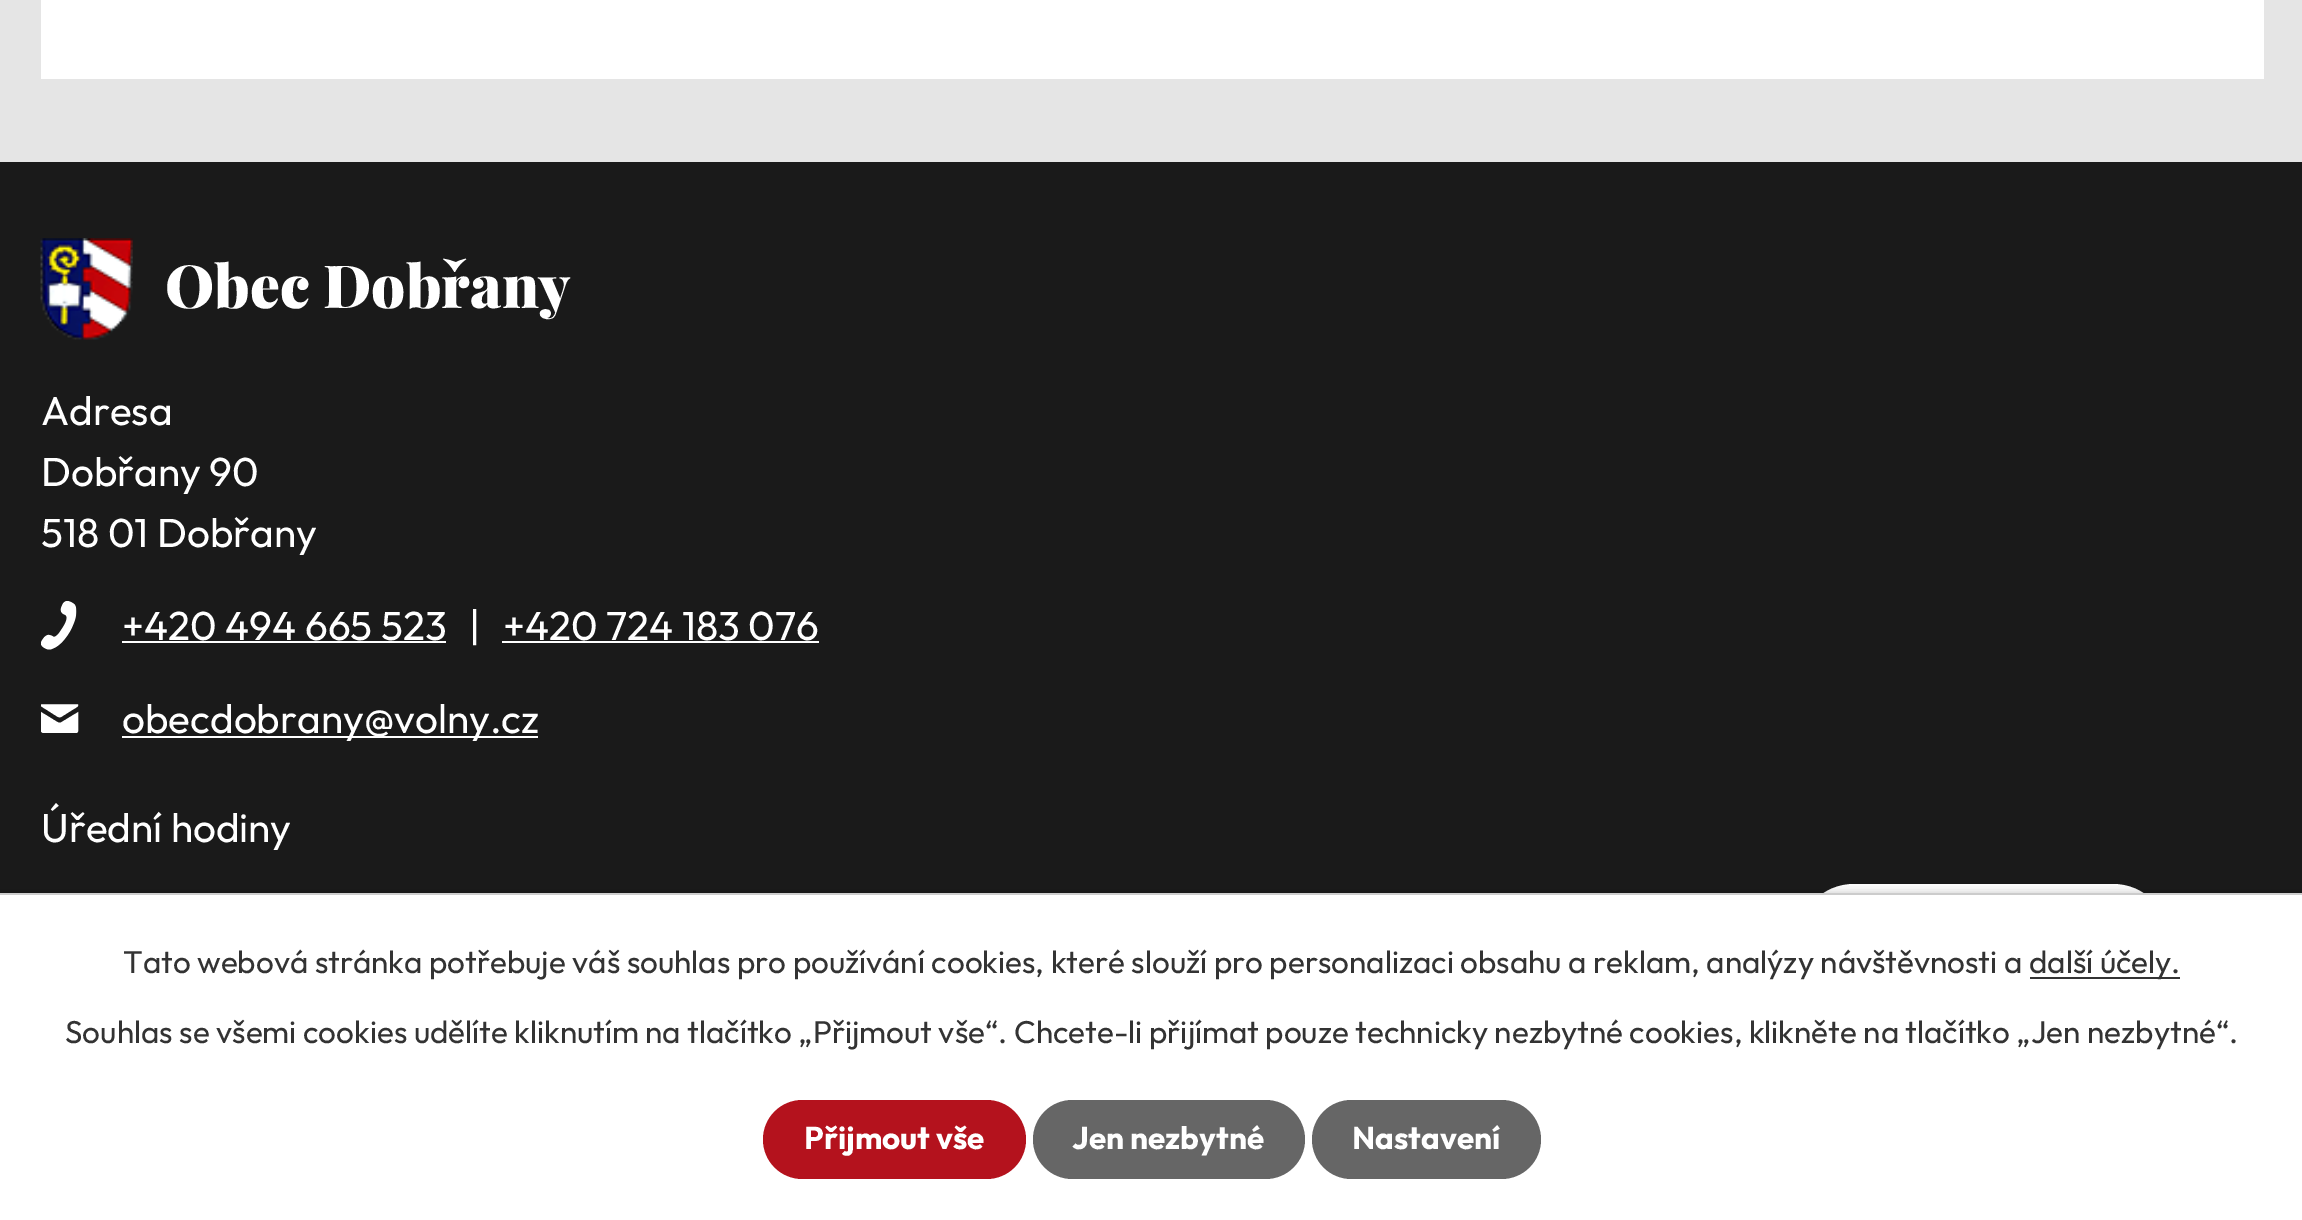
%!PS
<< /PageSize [2302 1220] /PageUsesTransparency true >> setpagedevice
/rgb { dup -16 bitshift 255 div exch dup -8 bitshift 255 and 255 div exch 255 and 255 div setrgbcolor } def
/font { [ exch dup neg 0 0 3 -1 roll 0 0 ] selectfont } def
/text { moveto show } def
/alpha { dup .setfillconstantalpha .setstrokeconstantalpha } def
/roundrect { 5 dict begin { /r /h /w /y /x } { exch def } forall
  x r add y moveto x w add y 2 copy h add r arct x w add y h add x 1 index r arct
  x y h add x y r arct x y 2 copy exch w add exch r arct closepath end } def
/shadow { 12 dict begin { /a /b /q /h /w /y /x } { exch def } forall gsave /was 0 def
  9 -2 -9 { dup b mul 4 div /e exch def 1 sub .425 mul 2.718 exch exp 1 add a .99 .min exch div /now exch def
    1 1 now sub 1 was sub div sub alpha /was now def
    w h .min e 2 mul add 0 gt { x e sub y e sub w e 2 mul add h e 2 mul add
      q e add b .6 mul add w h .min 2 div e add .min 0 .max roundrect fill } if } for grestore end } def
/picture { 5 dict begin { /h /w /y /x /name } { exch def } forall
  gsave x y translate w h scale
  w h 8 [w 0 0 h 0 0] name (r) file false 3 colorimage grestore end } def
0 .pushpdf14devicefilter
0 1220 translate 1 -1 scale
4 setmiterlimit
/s1 { /PlayfairDisplay-Black 59.5 font 16#FFFFFF rgb } def
/s2 { /Outfit-Regular 40.5 font 16#FFFFFF rgb } def
/s3 { /Outfit-Regular 31.5 font 16#333333 rgb } def
/s4 { /Outfit-Bold 31.5 font 16#FFFFFF rgb } def
16#E5E5E5 rgb
0 0 2302 1220 rectfill
16#FFFFFF rgb
41 0 2223 79 rectfill
16#1A1A1A rgb
0 162 2302 731 rectfill
16#000000 rgb
1798 891 371 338 56 11 0.2 shadow
16#FFFFFF rgb
1798 884 371 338 56 roundrect fill
(pic1.raw) 40 238 93 102 picture
s1
(Obec Dobřany) 165 308 text
s2
(Adresa) 41 425 text
(Dobřany 90) 41 486 text
(518 01 Dobřany) 41 547 text
(pic2.raw) 41 601 36 49 picture
(+420 494 665 523) 122 640 text
122 641 324 2 rectfill
(|) 469 640 text
(+420 724 183 076) 503 640 text
502 641 317 2 rectfill
(pic3.raw) 41 704 38 29 picture
122 736 416 2 rectfill
(obecdobrany@volny.cz) 122 733 text
(Úřední hodiny) 41 842 text
16#000000 rgb
0 893 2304 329 0 5.5 0.2 shadow
16#FFFFFF rgb
0 895 2302 325 rectfill
16#CCCCCC rgb
0 893 2302 2 rectfill
s3
(Tato webová stránka potřebuje váš souhlas pro používání cookies, které slouží pro personalizaci obsahu a reklam, analýzy návštěvnosti a) 123 973 text
2030 977 150 2 rectfill
(další účely.) 2029 973 text
(Souhlas se všemi cookies udělíte kliknutím na tlačítko „Přijmout vše“. Chcete-li přijímat pouze technicky nezbytné cookies, klikněte na tlačítko „Jen nezbytné“.) 65 1043 text
16#B4121D rgb
763 1100 263 79 39.5 roundrect fill
s4
(Přijmout vše) 804 1149 text
16#666666 rgb
1033 1100 272 79 39.5 roundrect fill
s4
(Jen nezbytné) 1072 1149 text
16#666666 rgb
1312 1100 229 79 39.5 roundrect fill
s4
(Nastavení) 1352 1149 text
.poppdf14devicefilter showpage
